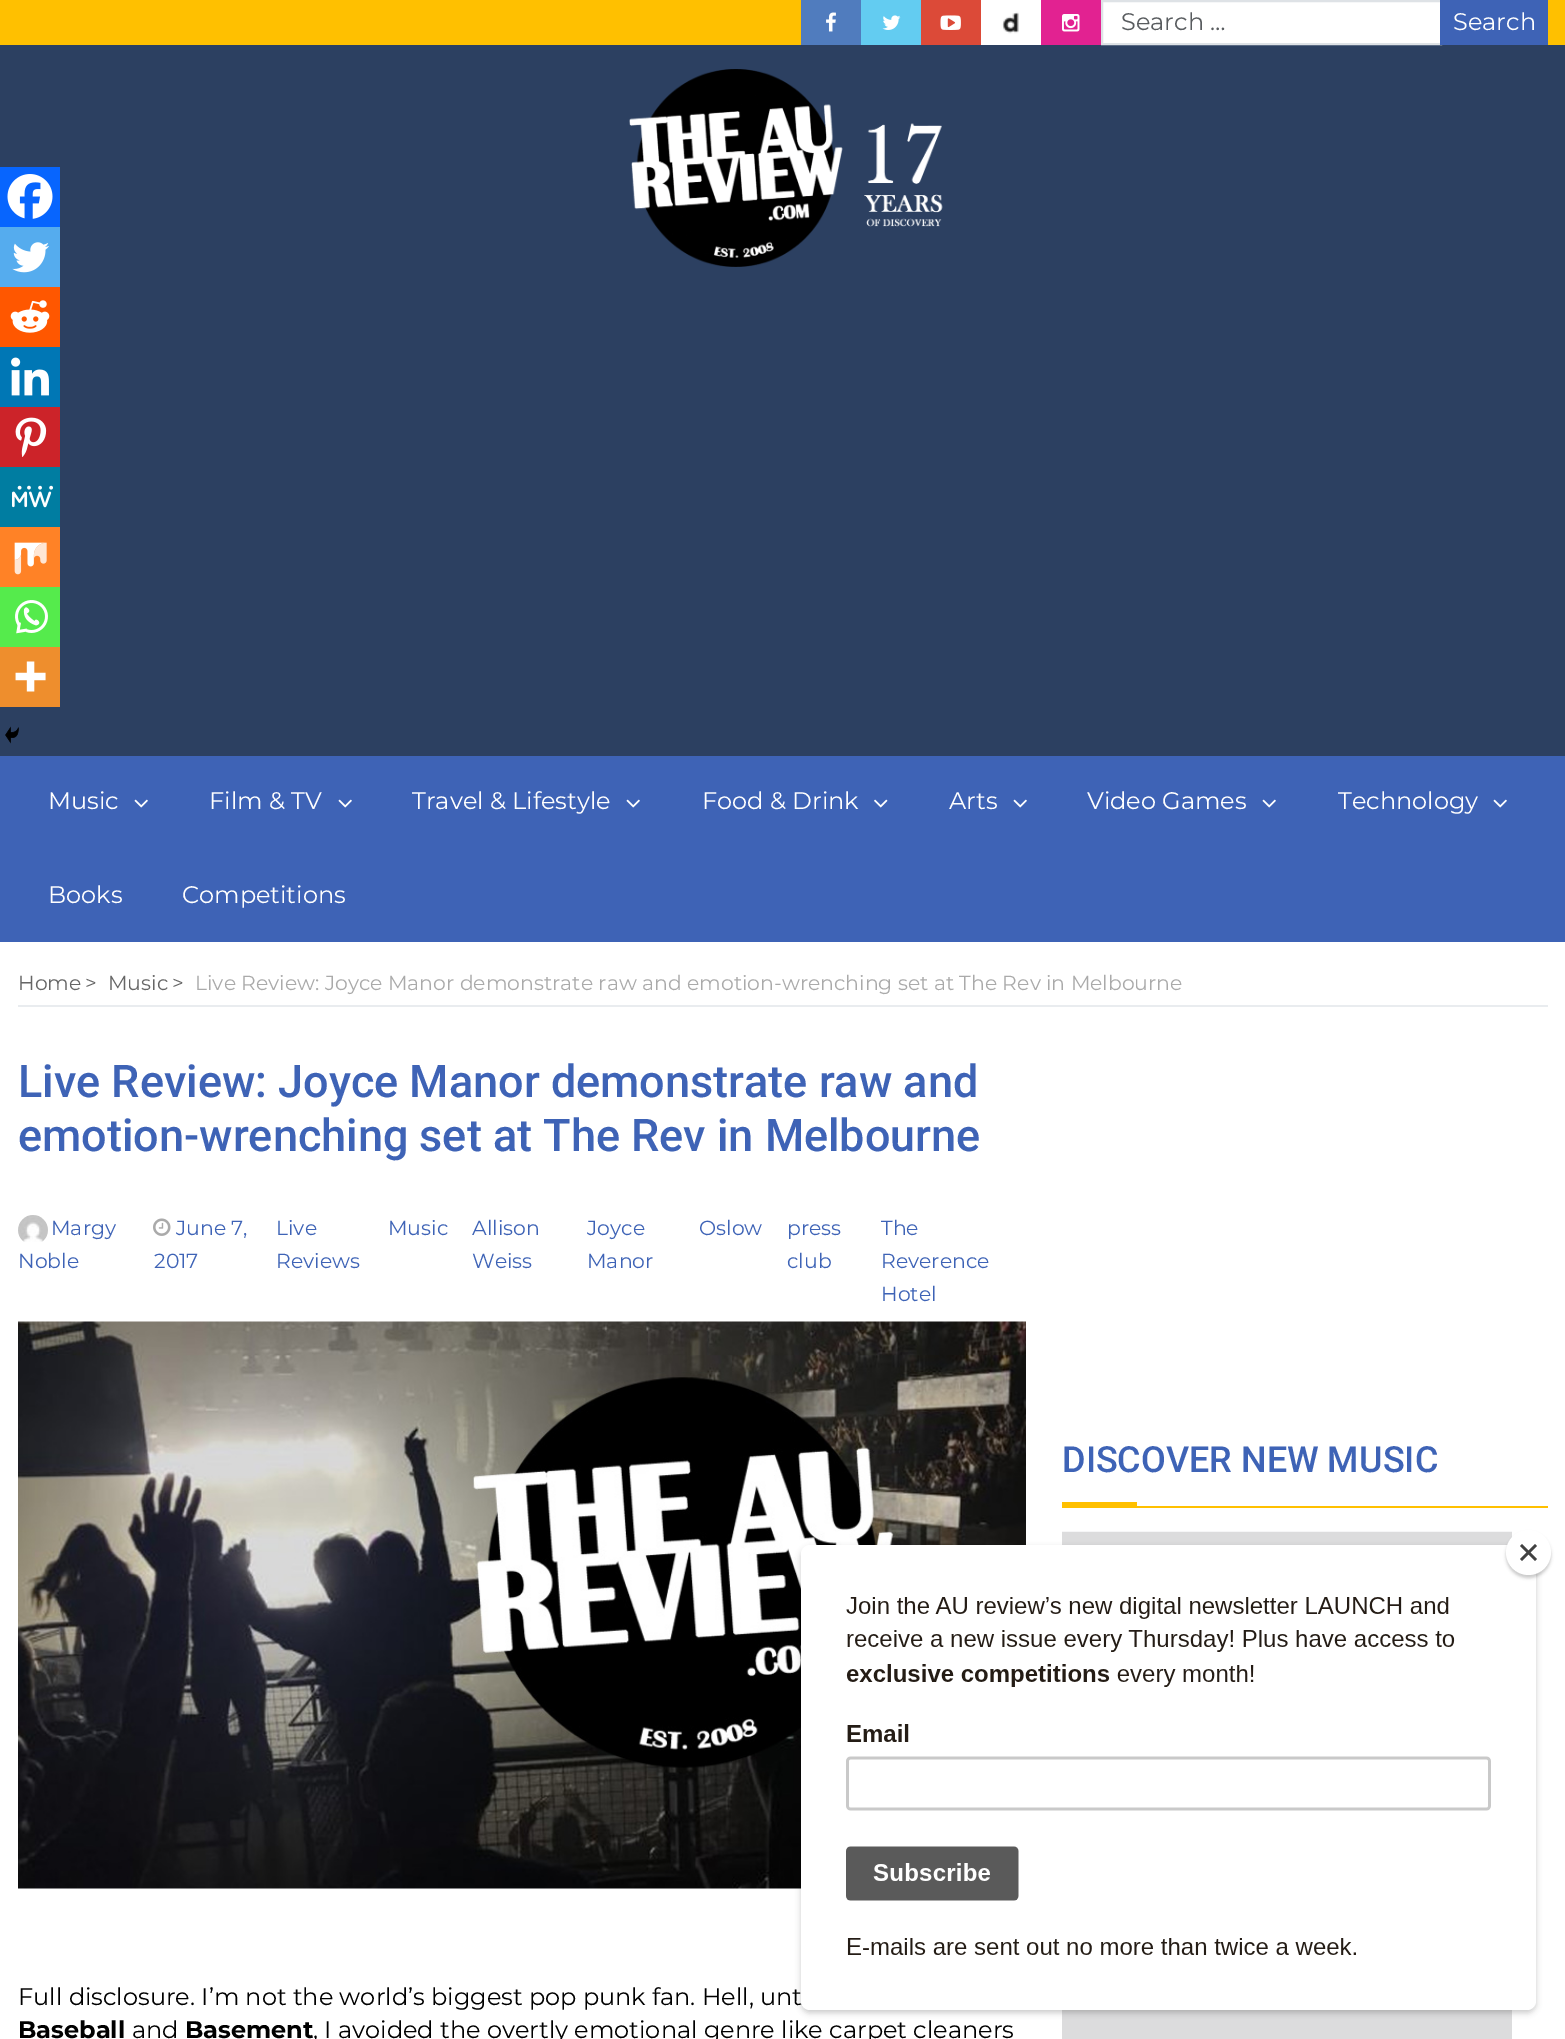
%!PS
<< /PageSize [1565 2039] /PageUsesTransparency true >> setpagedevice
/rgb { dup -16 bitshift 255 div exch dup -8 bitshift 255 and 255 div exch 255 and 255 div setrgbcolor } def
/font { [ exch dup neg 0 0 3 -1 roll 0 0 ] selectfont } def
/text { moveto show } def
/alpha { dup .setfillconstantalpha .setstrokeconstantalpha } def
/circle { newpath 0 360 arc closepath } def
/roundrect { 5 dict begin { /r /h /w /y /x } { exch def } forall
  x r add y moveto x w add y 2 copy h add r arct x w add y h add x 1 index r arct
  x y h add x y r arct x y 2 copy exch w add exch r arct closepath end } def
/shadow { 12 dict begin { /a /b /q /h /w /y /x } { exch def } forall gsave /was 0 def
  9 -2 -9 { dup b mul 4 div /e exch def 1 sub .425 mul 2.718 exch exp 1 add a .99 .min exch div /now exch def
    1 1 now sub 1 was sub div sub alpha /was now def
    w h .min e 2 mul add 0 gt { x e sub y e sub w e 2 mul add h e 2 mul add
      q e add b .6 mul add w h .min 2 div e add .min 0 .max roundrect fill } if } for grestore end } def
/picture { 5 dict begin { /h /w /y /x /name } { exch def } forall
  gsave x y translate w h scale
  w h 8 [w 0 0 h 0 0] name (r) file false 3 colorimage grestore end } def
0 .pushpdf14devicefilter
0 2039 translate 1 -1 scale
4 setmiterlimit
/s1 { /Montserrat-Regular 24 font 16#595C5F rgb } def
/s2 { /Montserrat-Regular 24 font 16#FFFFFF rgb } def
/s3 { /Montserrat-Regular 20.4 font 16#666666 rgb } def
/s4 { /Montserrat-Regular 20.4 font 16#AAAAAA rgb } def
/s5 { /Roboto-Medium 45 font 16#3E63B6 rgb } def
/s6 { /Montserrat-Regular 20.4 font 16#3E63B6 rgb } def
/s7 { /Montserrat-Regular 24 font 16#000000 rgb } def
/s8 { /Montserrat-Bold 24 font 16#000000 rgb } def
/s9 { /Roboto-Medium 36 font 16#3E63B6 rgb } def
16#FFFFFF rgb
0 0 1565 2039 rectfill
16#2C4061 rgb
0 45 1565 711 rectfill
16#FFC000 rgb
0 0 1565 45 rectfill
16#507CBE rgb
801 0 60 45 rectfill
(pic1.raw) 826 12 10 20 picture
16#63CCF1 rgb
861 0 60 45 rectfill
(pic2.raw) 882 15 19 15 picture
16#DC4A38 rgb
921 0 60 45 rectfill
(pic3.raw) 940 15 21 15 picture
(pic4.raw) 981 0 60 45 picture
16#E22291 rgb
1041 0 60 45 rectfill
(pic5.raw) 1062 14 18 18 picture
16#FFFFFF rgb
1102 1 moveto 1441 1 lineto 1441 44 lineto 1102 44 lineto closepath gsave fill grestore
16#DEE2E6 rgb
2 setlinewidth
stroke
s1
(Search …) 1121 30 text
16#3E63B6 rgb
1440 0 108 45 rectfill
s2
(Search) 1453 30 text
(pic6.raw) 629 69 314 198 picture
16#3E63B6 rgb
0 756 1565 186 rectfill
s2
(Music) 48 809 text
(pic7.raw) 134 799 14 9 picture
(Film & TV) 209 809 text
(pic7.raw) 338 799 14 9 picture
(Travel & Lifestyle) 412 809 text
(pic7.raw) 626 799 14 9 picture
(Food & Drink) 702 809 text
(pic8.raw) 874 799 14 9 picture
(Arts) 949 809 text
(pic7.raw) 1013 799 14 9 picture
(Video Games) 1087 809 text
(pic7.raw) 1262 799 14 9 picture
(Technology) 1338 809 text
(pic7.raw) 1493 799 14 9 picture
(Books) 48 903 text
(Competitions) 182 903 text
16#E9ECEF rgb
18 1005 1530 2 rectfill
s3
(Home) 18 990 text
(>) 85 990 text
(Music) 108 990 text
(>) 172 990 text
s4
(Live Review: Joyce Manor demonstrate raw and emotion-wrenching set at The Rev in Melbourne) 195 990 text
s5
(Live Review: Joyce Manor demonstrate raw and) 18 1097 text
(emotion-wrenching set at The Rev in Melbourne) 18 1151 text
(pic9.raw) 18 1215 30 27 picture
s6
(Margy) 51 1235 text
(Noble) 18 1268 text
(pic10.raw) 153 1218 18 18 picture
(June 7,) 176 1235 text
(2017) 154 1268 text
(Live) 276 1235 text
(Reviews) 276 1268 text
(Music) 388 1235 text
(Allison) 472 1235 text
(Weiss) 472 1268 text
(Joyce) 587 1235 text
(Manor) 587 1268 text
(Oslow) 699 1235 text
(press) 787 1235 text
(club) 787 1268 text
(The) 881 1235 text
(Reverence) 881 1268 text
(Hotel) 881 1301 text
(pic11.raw) 18 1321 1008 568 picture
16#0765FE rgb
0 167 60 60 rectfill
(pic12.raw) 7 174 46 45 picture
16#55ACEE rgb
0 227 60 60 rectfill
(pic13.raw) 12 242 37 31 picture
16#FF5700 rgb
0 287 60 60 rectfill
(pic14.raw) 10 300 40 33 picture
16#0077B5 rgb
0 347 60 60 rectfill
(pic15.raw) 11 357 38 39 picture
16#CC2329 rgb
0 407 60 60 rectfill
(pic16.raw) 15 417 32 40 picture
16#007DA1 rgb
0 467 60 60 rectfill
(pic17.raw) 12 485 41 23 picture
16#FF8226 rgb
0 527 60 60 rectfill
(pic18.raw) 14 542 33 33 picture
16#55EB4C rgb
0 587 60 60 rectfill
(pic19.raw) 15 600 33 34 picture
16#EE8E2D rgb
0 647 60 60 rectfill
(pic20.raw) 15 661 31 31 picture
(pic21.raw) 5 726 14 18 picture
s7
(Full disclosure. I’m not the world’s biggest pop punk fan. Hell, unt) 18 2005 text
s8
(Baseball) 18 2038 text
s7
(and) 132 2038 text
s8
(Basement) 185 2038 text
s7
(, I avoided the overtly emotional genre like carpet cleaners) 313 2038 text
16#FFC000 rgb
1137 1506 411 2 rectfill
s9
(DISCOVER NEW MUSIC) 1062 1472 text
16#FFC000 rgb
1062 1502 75 6 rectfill
(pic22.raw) 1062 1531 450 508 picture
16#000000 rgb
801 1548 735 465 9 3 0.2 shadow
16#FFFFFF rgb
801 1545 735 465 9 roundrect fill
16#000000 rgb
1506 1533 45 45 22.5 1.5 0.2 shadow
16#FFFFFF rgb
1528.5 1552.5 22.5 circle fill
16#414141 rgb
1535 1544 moveto 1537 1546 lineto 1522 1561 lineto 1520 1559 lineto closepath fill
1520 1546 moveto 1522 1544 lineto 1537 1559 lineto 1535 1561 lineto closepath fill
(pic23.raw) 801 1597 690 411 picture
.poppdf14devicefilter showpage
